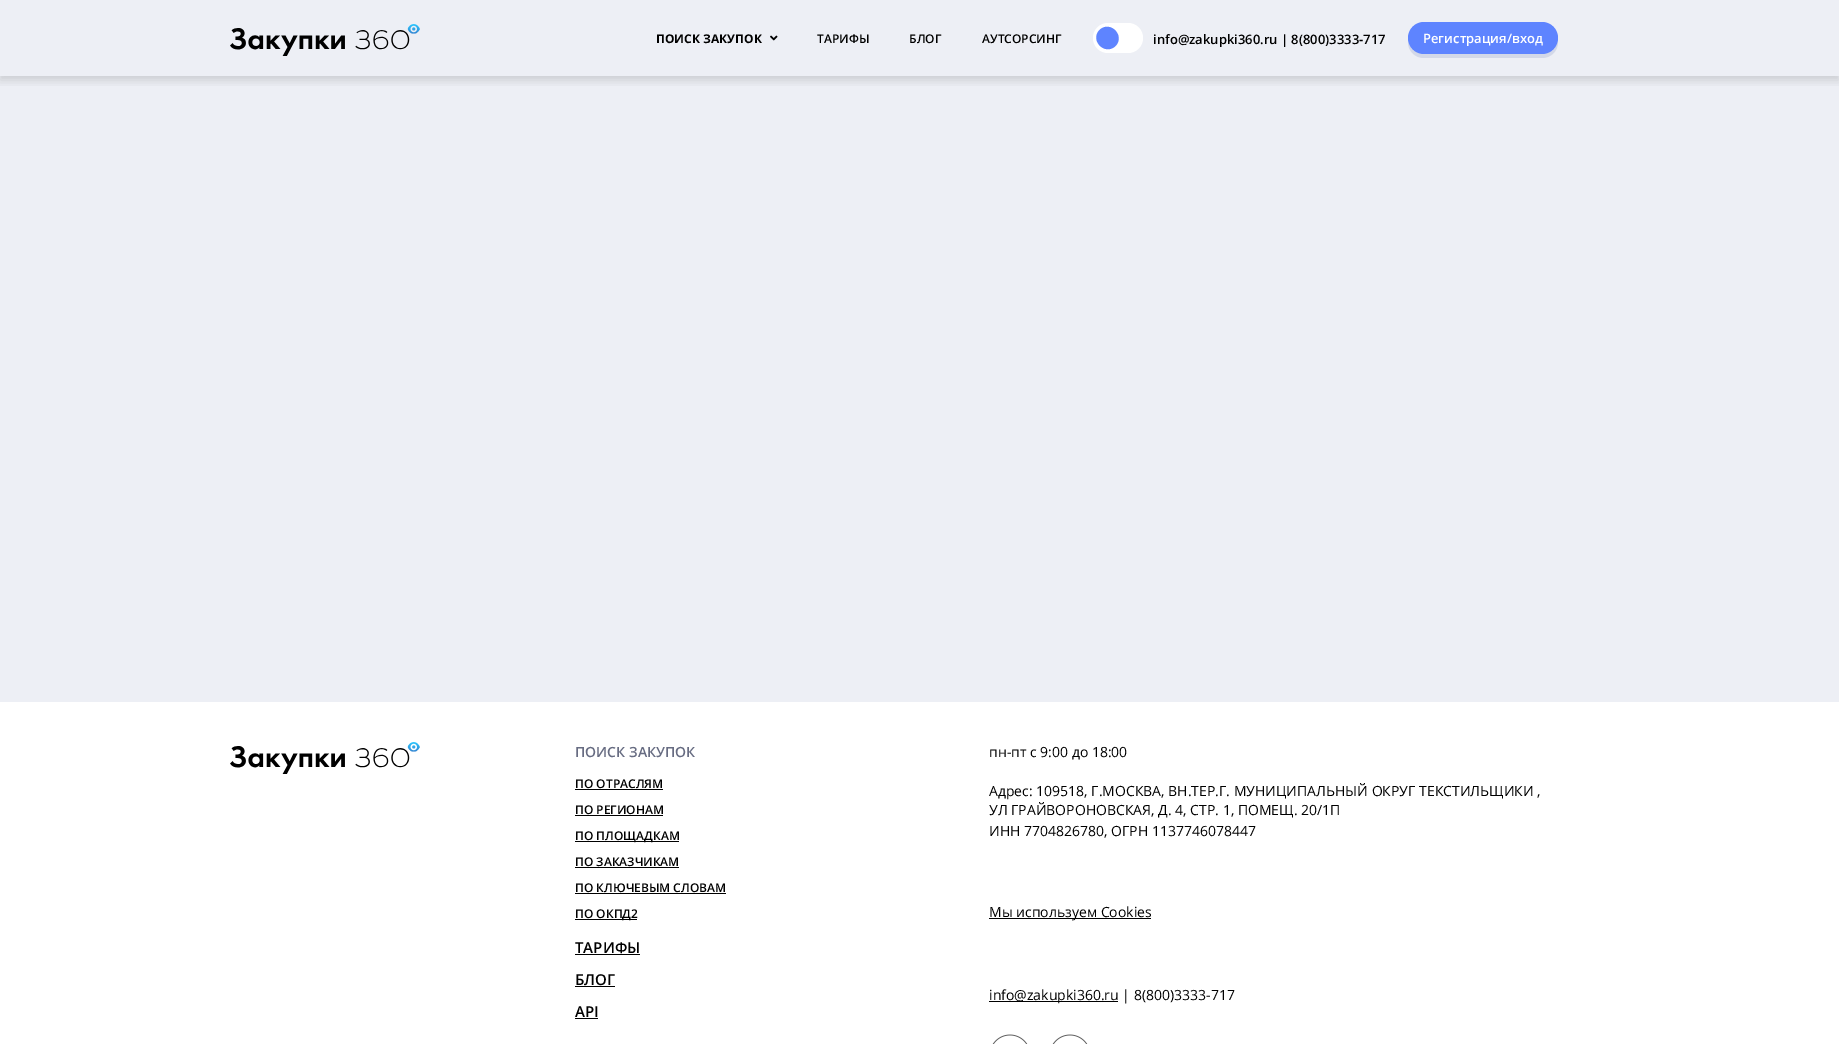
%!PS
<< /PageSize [1839 1044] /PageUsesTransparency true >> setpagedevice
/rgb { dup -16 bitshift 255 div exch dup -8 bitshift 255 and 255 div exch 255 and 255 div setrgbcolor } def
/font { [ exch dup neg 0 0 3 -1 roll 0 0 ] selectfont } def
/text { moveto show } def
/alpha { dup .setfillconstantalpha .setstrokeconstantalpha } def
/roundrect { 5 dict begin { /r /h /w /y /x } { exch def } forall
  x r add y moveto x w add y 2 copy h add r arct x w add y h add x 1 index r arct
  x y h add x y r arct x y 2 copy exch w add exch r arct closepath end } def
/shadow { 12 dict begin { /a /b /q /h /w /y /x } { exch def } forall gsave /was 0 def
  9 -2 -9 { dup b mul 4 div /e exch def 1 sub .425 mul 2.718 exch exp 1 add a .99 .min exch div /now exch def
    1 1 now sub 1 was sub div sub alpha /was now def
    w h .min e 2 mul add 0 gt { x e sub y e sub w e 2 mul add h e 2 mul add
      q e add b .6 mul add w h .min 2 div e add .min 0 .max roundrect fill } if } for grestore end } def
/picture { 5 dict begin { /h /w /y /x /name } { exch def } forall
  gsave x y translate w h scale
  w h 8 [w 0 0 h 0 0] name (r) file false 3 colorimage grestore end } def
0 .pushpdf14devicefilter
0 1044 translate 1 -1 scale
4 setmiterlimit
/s1 { /OpenSans-Bold 12 font 16#000000 rgb } def
/s2 { /OpenSans-SemiBold 12 font 16#000000 rgb } def
/s3 { /OpenSans-SemiBold 13 font 16#000000 rgb } def
/s4 { /OpenSans-SemiBold 13 font 16#FFFFFF rgb } def
/s5 { /OpenSans-SemiBold 14 font 16#676C82 rgb } def
/s6 { /OpenSans-SemiBold 15 font 16#000000 rgb } def
/s7 { /OpenSans-Regular 14 font 16#000000 rgb } def
16#EDEFF5 rgb
0 0 1839 1044 rectfill
gsave
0 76 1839 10 rectclip
16#000000 rgb
0 4 1839 76 0 5 0.15 shadow
grestore
(pic1.raw) 230 24 190 32 picture
s1
(ПОИСК ЗАКУПОК) 656 43 text
(pic2.raw) 770 35 8 6 picture
s2
(ТАРИФЫ) 817 43 text
(БЛОГ) 909 43 text
(АУТСОРСИНГ) 982 43 text
16#FFFFFF rgb
1093 23 50 30 15 roundrect fill
16#5E84FF rgb
1099.5 30 moveto 1110 20 1125.5 35.5 1115.5 46 curveto 1105 56 1089.5 40.5 1099.5 30 curveto closepath fill
s3
(info@zakupki360.ru | 8\(800\)3333-717) 1153 44 text
16#D3D8E8 rgb
1408 40 moveto 1408 42 lineto 1408 51 1415 58 1424 58 curveto 1542 58 lineto 1551 58 1558 51 1558 42 curveto 1558 40 lineto 1557 48 1550 54 1542 54 curveto 1424 54 lineto 1416 54 1409 48 1408 40 curveto closepath fill
16#5E84FF rgb
1408 22 150 32 16 roundrect fill
s4
(Регистрация/вход) 1423 43 text
0 702 1839 342 rectfill
(pic3.raw) 230 742 190 32 picture
s5
(ПОИСК ЗАКУПОК) 575 757 text
s2
(ПО ОТРАСЛЯМ) 575 788 text
575 789 88 1 rectfill
(ПО РЕГИОНАМ) 575 814 text
575 815 88 1 rectfill
575 841 104 1 rectfill
(ПО ПЛОЩАДКАМ) 575 840 text
(ПО ЗАКАЗЧИКАМ) 575 866 text
575 867 104 1 rectfill
(ПО КЛЮЧЕВЫМ СЛОВАМ) 575 892 text
575 893 151 1 rectfill
575 919 62 1 rectfill
(ПО ОКПД2) 575 918 text
s6
(ТАРИФЫ) 575 953 text
575 954 65 1 rectfill
(БЛОГ) 575 985 text
575 986 40 1 rectfill
(API) 575 1017 text
575 1018 23 1 rectfill
s7
(пн-пт с 9:00 до 18:00) 989 757 text
(Адрес: 109518, Г.МОСКВА, ВН.ТЕР.Г. МУНИЦИПАЛЬНЫЙ ОКРУГ ТЕКСТИЛЬЩИКИ ,) 989 796 text
(УЛ ГРАЙВОРОНОВСКАЯ, Д. 4, СТР. 1, ПОМЕЩ. 20/1П) 989 815 text
(ИНН 7704826780, ОГРН 1137746078447) 989 836 text
989 918 162 1 rectfill
(Мы используем Cookies) 989 917 text
989 1001 129 1 rectfill
(info@zakupki360.ru) 989 1000 text
(|) 1122 1000 text
(8\(800\)3333-717) 1134 1000 text
(pic4.raw) 992 1034 36 10 picture
(pic4.raw) 1052 1034 36 10 picture
.poppdf14devicefilter showpage
